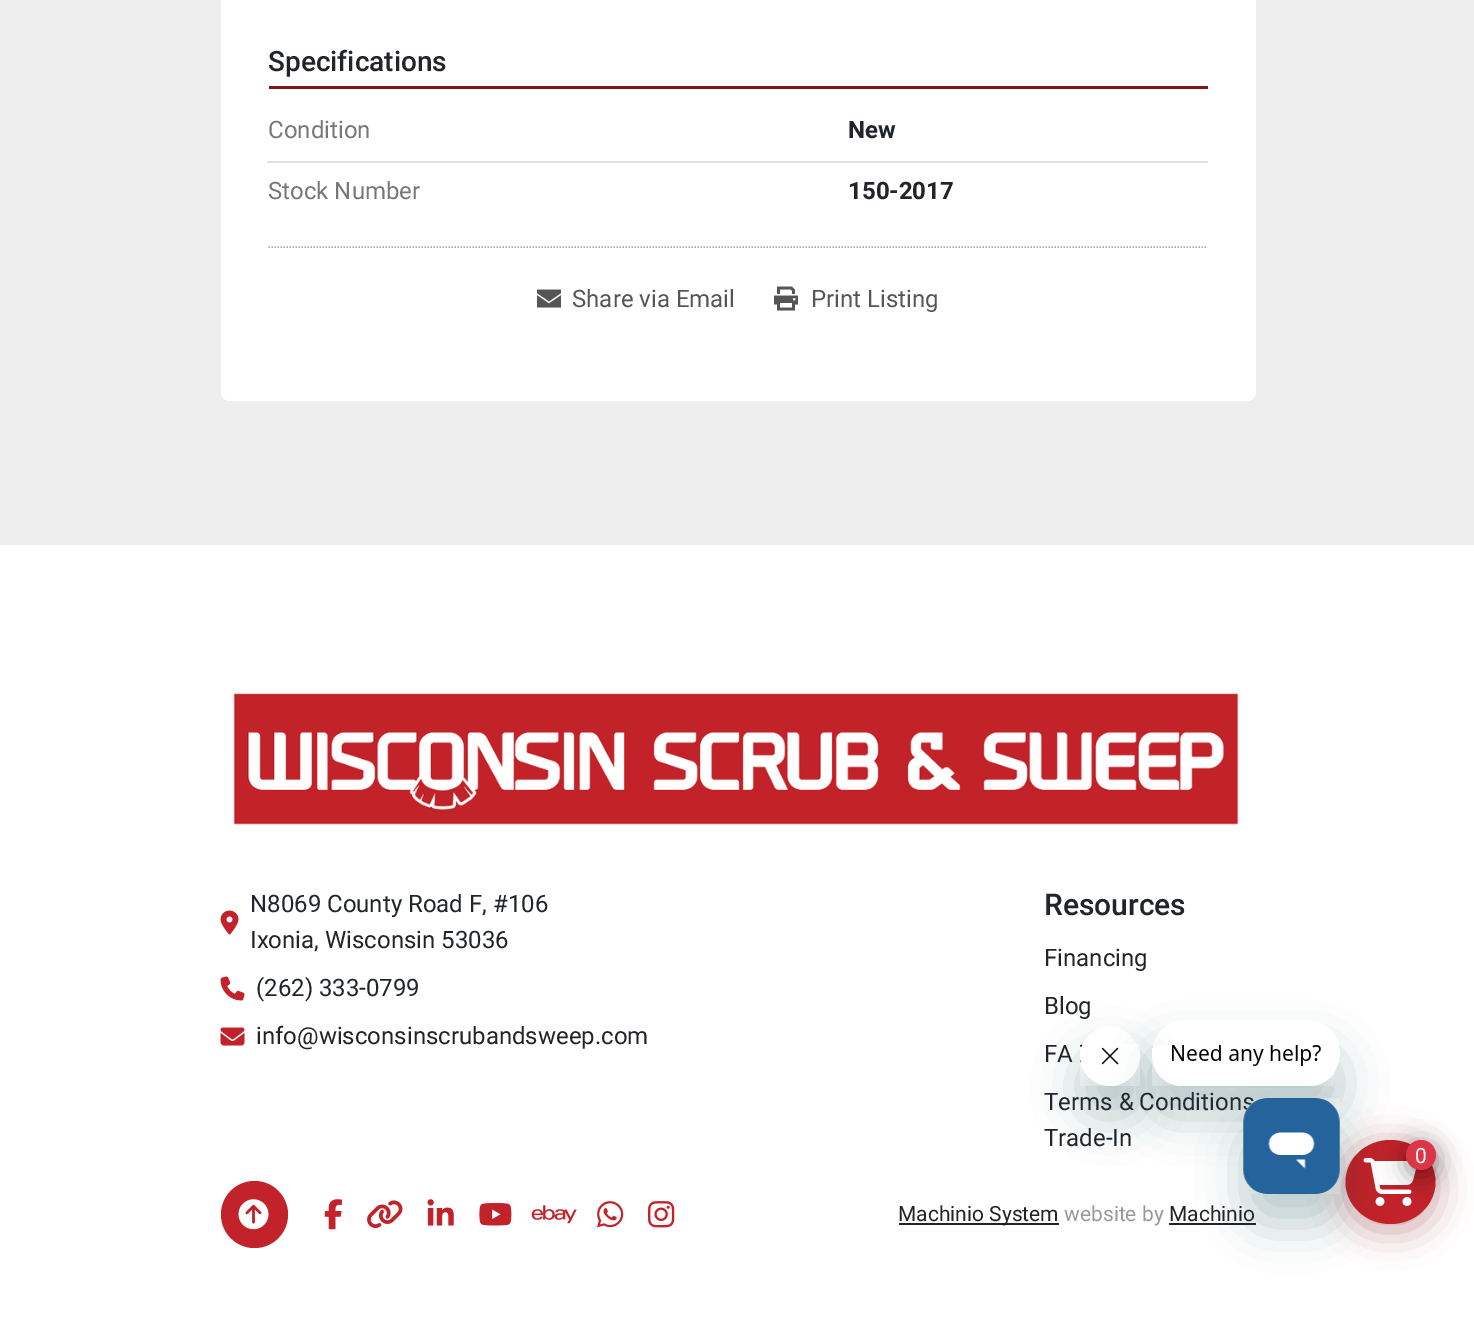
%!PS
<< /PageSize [1474 1328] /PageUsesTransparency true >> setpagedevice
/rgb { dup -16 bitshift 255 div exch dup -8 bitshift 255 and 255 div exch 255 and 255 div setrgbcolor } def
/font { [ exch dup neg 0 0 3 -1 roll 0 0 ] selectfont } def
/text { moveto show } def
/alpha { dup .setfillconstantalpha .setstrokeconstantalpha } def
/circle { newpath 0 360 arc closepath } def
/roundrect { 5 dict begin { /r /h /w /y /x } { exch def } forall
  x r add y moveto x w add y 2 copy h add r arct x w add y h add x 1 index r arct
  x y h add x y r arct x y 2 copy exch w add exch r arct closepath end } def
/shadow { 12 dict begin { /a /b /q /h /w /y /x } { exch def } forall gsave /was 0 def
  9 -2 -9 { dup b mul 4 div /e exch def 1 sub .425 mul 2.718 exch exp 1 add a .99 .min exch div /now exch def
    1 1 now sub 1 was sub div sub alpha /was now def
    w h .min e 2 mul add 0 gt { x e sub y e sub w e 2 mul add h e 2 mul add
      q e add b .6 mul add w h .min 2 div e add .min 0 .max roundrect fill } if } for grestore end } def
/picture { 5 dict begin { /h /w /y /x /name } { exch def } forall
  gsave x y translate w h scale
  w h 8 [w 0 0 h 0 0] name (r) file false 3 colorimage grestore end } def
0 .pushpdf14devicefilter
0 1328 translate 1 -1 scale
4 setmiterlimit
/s1 { /Roboto-Medium 28 font 16#212529 rgb } def
/s2 { /Roboto-Regular 24 font 16#777777 rgb } def
/s3 { /Roboto-Bold 24 font 16#212529 rgb } def
/s4 { /Roboto-Regular 24 font 16#555555 rgb } def
/s5 { /Roboto-Regular 24 font 16#212529 rgb } def
/s6 { /Roboto-Medium 30 font 16#212529 rgb } def
/s7 { /Roboto-Regular 21 font 16#212529 rgb } def
/s8 { /Roboto-Regular 21 font 16#999999 rgb } def
/s9 { /Roboto-Regular 21 font 16#FFFFFF rgb } def
16#EEEEEE rgb
0 0 1474 1328 rectfill
16#FFFFFF rgb
221 -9 1035 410 9 roundrect fill
16#81171B rgb
269 86 939 3 rectfill
s1
(Specifications) 268 71 text
16#DEE2E6 rgb
267 161 941 2 rectfill
s2
(Condition) 268 138 text
s3
(New) 848 138 text
s2
(Stock Number) 268 199 text
s3
(150-2017) 848 199 text
16#AAAAAA rgb
1.5 setlinewidth
[1.5 1.5] 0 setdash
268.5 247 moveto 1207.5 247 lineto stroke
(pic1.raw) 537 289 24 19 picture
s4
(Share via Email) 572 307 text
(pic2.raw) 774 286 24 25 picture
(Print Listing) 811 307 text
16#FFFFFF rgb
0 545 1474 783 rectfill
(pic3.raw) 233 693 1006 132 picture
(pic4.raw) 220 910 19 25 picture
s5
(N8069 County Road F, #106) 250 912 text
(Ixonia, Wisconsin 53036) 250 948 text
(pic5.raw) 220 976 25 25 picture
(\(262\) 333-0799) 256 996 text
(pic6.raw) 220 1027 25 19 picture
(info@wisconsinscrubandsweep.com) 256 1044 text
s6
(Resources) 1044 915 text
s5
(Financing) 1044 966 text
(Blog) 1044 1014 text
(FA) 1044 1062 text
(Terms & Conditions) 1044 1110 text
(Trade-In) 1044 1146 text
16#C22229 rgb
254.5 1214.5 33.5 circle fill
(pic7.raw) 238 1199 31 31 picture
(pic8.raw) 324 1199 18 31 picture
(pic9.raw) 367 1200 36 28 picture
(pic10.raw) 427 1199 27 27 picture
(pic11.raw) 479 1203 33 23 picture
(pic12.raw) 531 1205 46 19 picture
(pic13.raw) 597 1201 27 27 picture
(pic14.raw) 648 1201 27 27 picture
16#212529 rgb
899 1223 160 2 rectfill
s7
(Machinio System) 898 1221 text
s8
(website by) 1064 1221 text
s7
(Machinio) 1169 1221 text
1169 1223 87 2 rectfill
16#81171B rgb
1346 1146 90 84 42 18 0.4 shadow
16#C22229 rgb
1390.5 1140 moveto 1415.5 1140 1435.5 1159 1435.5 1182 curveto 1435.5 1205 1415.5 1224 1390.5 1224 curveto 1365.5 1224 1345.5 1205 1345.5 1182 curveto 1345.5 1159 1365.5 1140 1390.5 1140 curveto closepath fill
(pic15.raw) 1363 1158 53 48 picture
16#000000 rgb
1406 1146 30 30 15 12 0.4 shadow
16#DC3545 rgb
1421 1155 15 circle fill
s9
(0) 1415 1163 text
gsave
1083 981 moveto 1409 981 lineto 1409 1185 lineto 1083 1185 lineto closepath 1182 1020 moveto 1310 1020 lineto 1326.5 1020 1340 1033.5 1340 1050 curveto 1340 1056 lineto 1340 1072.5 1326.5 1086 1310 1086 curveto 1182 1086 lineto 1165.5 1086 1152 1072.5 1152 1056 curveto 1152 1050 lineto 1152 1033.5 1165.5 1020 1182 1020 curveto closepath eoclip newpath
16#17494D rgb
1152 1050 188 66 30 22.5 0.15 shadow
grestore
gsave
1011 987 moveto 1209 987 lineto 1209 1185 lineto 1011 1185 lineto closepath 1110 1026 moveto 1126.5 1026 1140 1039.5 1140 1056 curveto 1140 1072.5 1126.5 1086 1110 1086 curveto 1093.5 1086 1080 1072.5 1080 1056 curveto 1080 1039.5 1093.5 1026 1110 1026 curveto closepath eoclip newpath
16#17494D rgb
1080 1056 60 60 30 22.5 0.15 shadow
grestore
(pic16.raw) 1153 1045 168 39 picture
(pic17.raw) 1080 1044 3 21 picture
16#17494D rgb
1244 1128 96 96 24 22.5 0.15 shadow
(pic18.raw) 1243 1098 97 96 picture
gsave
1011 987 moveto 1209 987 lineto 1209 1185 lineto 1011 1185 lineto closepath 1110 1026 moveto 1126.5 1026 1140 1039.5 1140 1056 curveto 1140 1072.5 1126.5 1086 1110 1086 curveto 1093.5 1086 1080 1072.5 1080 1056 curveto 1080 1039.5 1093.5 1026 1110 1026 curveto closepath eoclip newpath
1080 1056 60 60 30 22.5 0.15 shadow
grestore
(pic20.raw) 1080 1044 60 42 picture
gsave
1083 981 moveto 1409 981 lineto 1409 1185 lineto 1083 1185 lineto closepath 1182 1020 moveto 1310 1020 lineto 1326.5 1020 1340 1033.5 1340 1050 curveto 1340 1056 lineto 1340 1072.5 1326.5 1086 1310 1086 curveto 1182 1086 lineto 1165.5 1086 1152 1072.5 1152 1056 curveto 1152 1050 lineto 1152 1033.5 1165.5 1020 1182 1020 curveto closepath eoclip newpath
1152 1050 188 66 30 22.5 0.15 shadow
grestore
(pic19.raw) 1152 1048 182 38 picture
1244 1128 96 96 24 22.5 0.15 shadow
(pic21.raw) 1243 1098 97 96 picture
.poppdf14devicefilter showpage
